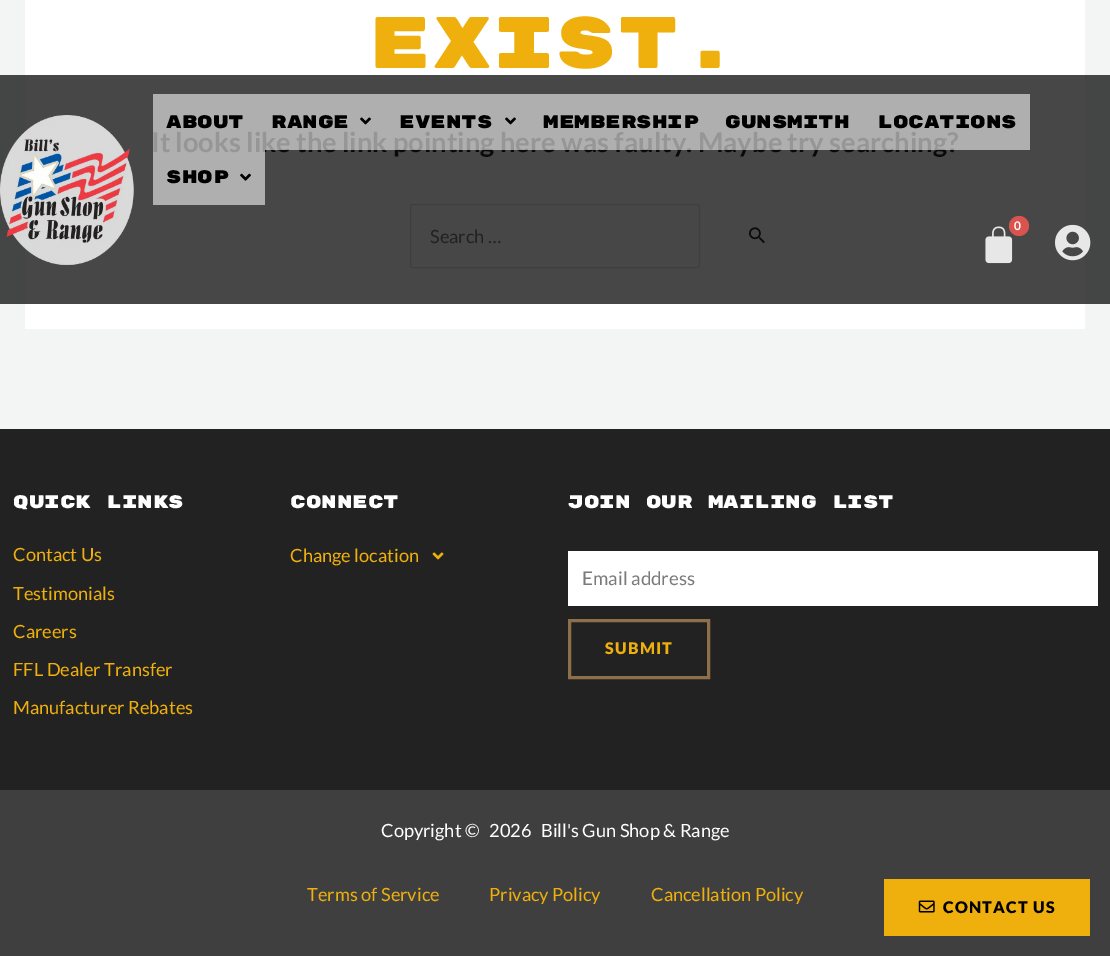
%!PS
<< /PageSize [1110 956] /PageUsesTransparency true >> setpagedevice
/rgb { dup -16 bitshift 255 div exch dup -8 bitshift 255 and 255 div exch 255 and 255 div setrgbcolor } def
/font { [ exch dup neg 0 0 3 -1 roll 0 0 ] selectfont } def
/text { moveto show } def
/alpha { dup .setfillconstantalpha .setstrokeconstantalpha } def
/circle { newpath 0 360 arc closepath } def
/roundrect { 5 dict begin { /r /h /w /y /x } { exch def } forall
  x r add y moveto x w add y 2 copy h add r arct x w add y h add x 1 index r arct
  x y h add x y r arct x y 2 copy exch w add exch r arct closepath end } def
/picture { 5 dict begin { /h /w /y /x /name } { exch def } forall
  gsave x y translate w h scale
  w h 8 [w 0 0 h 0 0] name (r) file false 3 colorimage grestore end } def
0 .pushpdf14devicefilter
0 956 translate 1 -1 scale
4 setmiterlimit
/s1 { /RubikMonoOne-Regular 73 font 16#EFB00D rgb } def
/s2 { /Lato-Bold 27.35 font 16#090A0B rgb } def
/s3 { /Lato-Regular 18.25 font 16#212121 rgb } def
/s4 { /RubikMonoOne-Regular 18.25 font 16#000000 rgb } def
/s5 { /RubikMonoOne-Regular 18.25 font 16#FFFFFF rgb } def
/s6 { /Lato-Regular 18.25 font 16#EFB00D rgb } def
/s7 { /Lato-Regular 18.75 font 16#797A7C rgb } def
/s8 { /Lato-Regular 18.25 font 16#FFFFFF rgb } def
16#F3F5F5 rgb
0 0 1110 956 rectfill
16#444545 rgb
0 75 1110 229 rectfill
16#FFFFFF rgb
25 0 1060 329 rectfill
16#474747 rgb
25 75 1060 229 rectfill
s1
(exist.) 369 68 text
s2
(It looks like the link pointing here was faulty. Maybe try searching?) 151 152 text
16#3E3E3E rgb
410.5 204.5 289 63 2 roundrect stroke
s3
(Search …) 430 243 text
(pic1.raw) 749 227 16 17 picture
(pic2.raw) 0 115 134 150 picture
0.59 alpha
16#F8F8F8 rgb
153 94 105 56 rectfill
1 alpha
s4
(About) 166 128 text
0.59 alpha
16#F8F8F8 rgb
258 94 127 56 rectfill
1 alpha
s4
(Range) 271 128 text
(pic3.raw) 360 117 11 8 picture
0.59 alpha
16#F8F8F8 rgb
385 94 144 56 rectfill
1 alpha
s4
(Events) 399 128 text
(pic3.raw) 505 117 11 8 picture
0.59 alpha
16#F8F8F8 rgb
529 94 182 56 rectfill
1 alpha
s4
(Membership) 543 128 text
0.59 alpha
16#F8F8F8 rgb
711 94 152 56 rectfill
1 alpha
s4
(Gunsmith) 725 128 text
0.59 alpha
16#F8F8F8 rgb
863 94 167 56 rectfill
1 alpha
s4
(Locations) 877 128 text
0.59 alpha
16#F8F8F8 rgb
153 150 112 55 rectfill
1 alpha
s4
(Shop) 166 183 text
(pic4.raw) 240 173 11 8 picture
(pic5.raw) 985 226 28 38 picture
16#D9534F rgb
1019 226 10 circle fill
/Lato-Bold 12 font
16#FFFFFF rgb
1014 230 moveto 1.25 0 (0) ashow
(pic6.raw) 1055 224 36 37 picture
16#222222 rgb
0 429 1110 361 rectfill
s5
(Quick Links) 13 508 text
s6
(Contact Us) 13 561 text
(Testimonials) 13 600 text
(Careers) 13 638 text
(FFL Dealer Transfer) 13 676 text
(Manufacturer Rebates) 13 714 text
s5
(Connect) 290 508 text
s6
(Change location) 290 562 text
(pic7.raw) 432 552 12 8 picture
s5
(Join Our Mailing List) 568 508 text
568 551 530 55 rectfill
s7
(Email address) 582 585 text
16#8D6F4A rgb
3 setlinewidth
569.5 620.5 139 57 rectstroke
/Lato-Black 16 font
16#EFB00D rgb
605 654 moveto 1.25 0 (SUBMIT) ashow
16#3F3F3F rgb
0 790 1110 166 rectfill
s8
(Copyright ©) 381 837 text
(2026) 489 837 text
(Bill's Gun Shop & Range) 541 837 text
s6
(Terms of Service) 307 901 text
(Privacy Policy) 489 901 text
(Cancellation Policy) 651 901 text
884 879 206 57 rectfill
(pic8.raw) 918 900 17 13 picture
/Lato-Black 16 font
16#000000 rgb
943 913 moveto 1.25 0 (CONTACT US) ashow
.poppdf14devicefilter showpage
